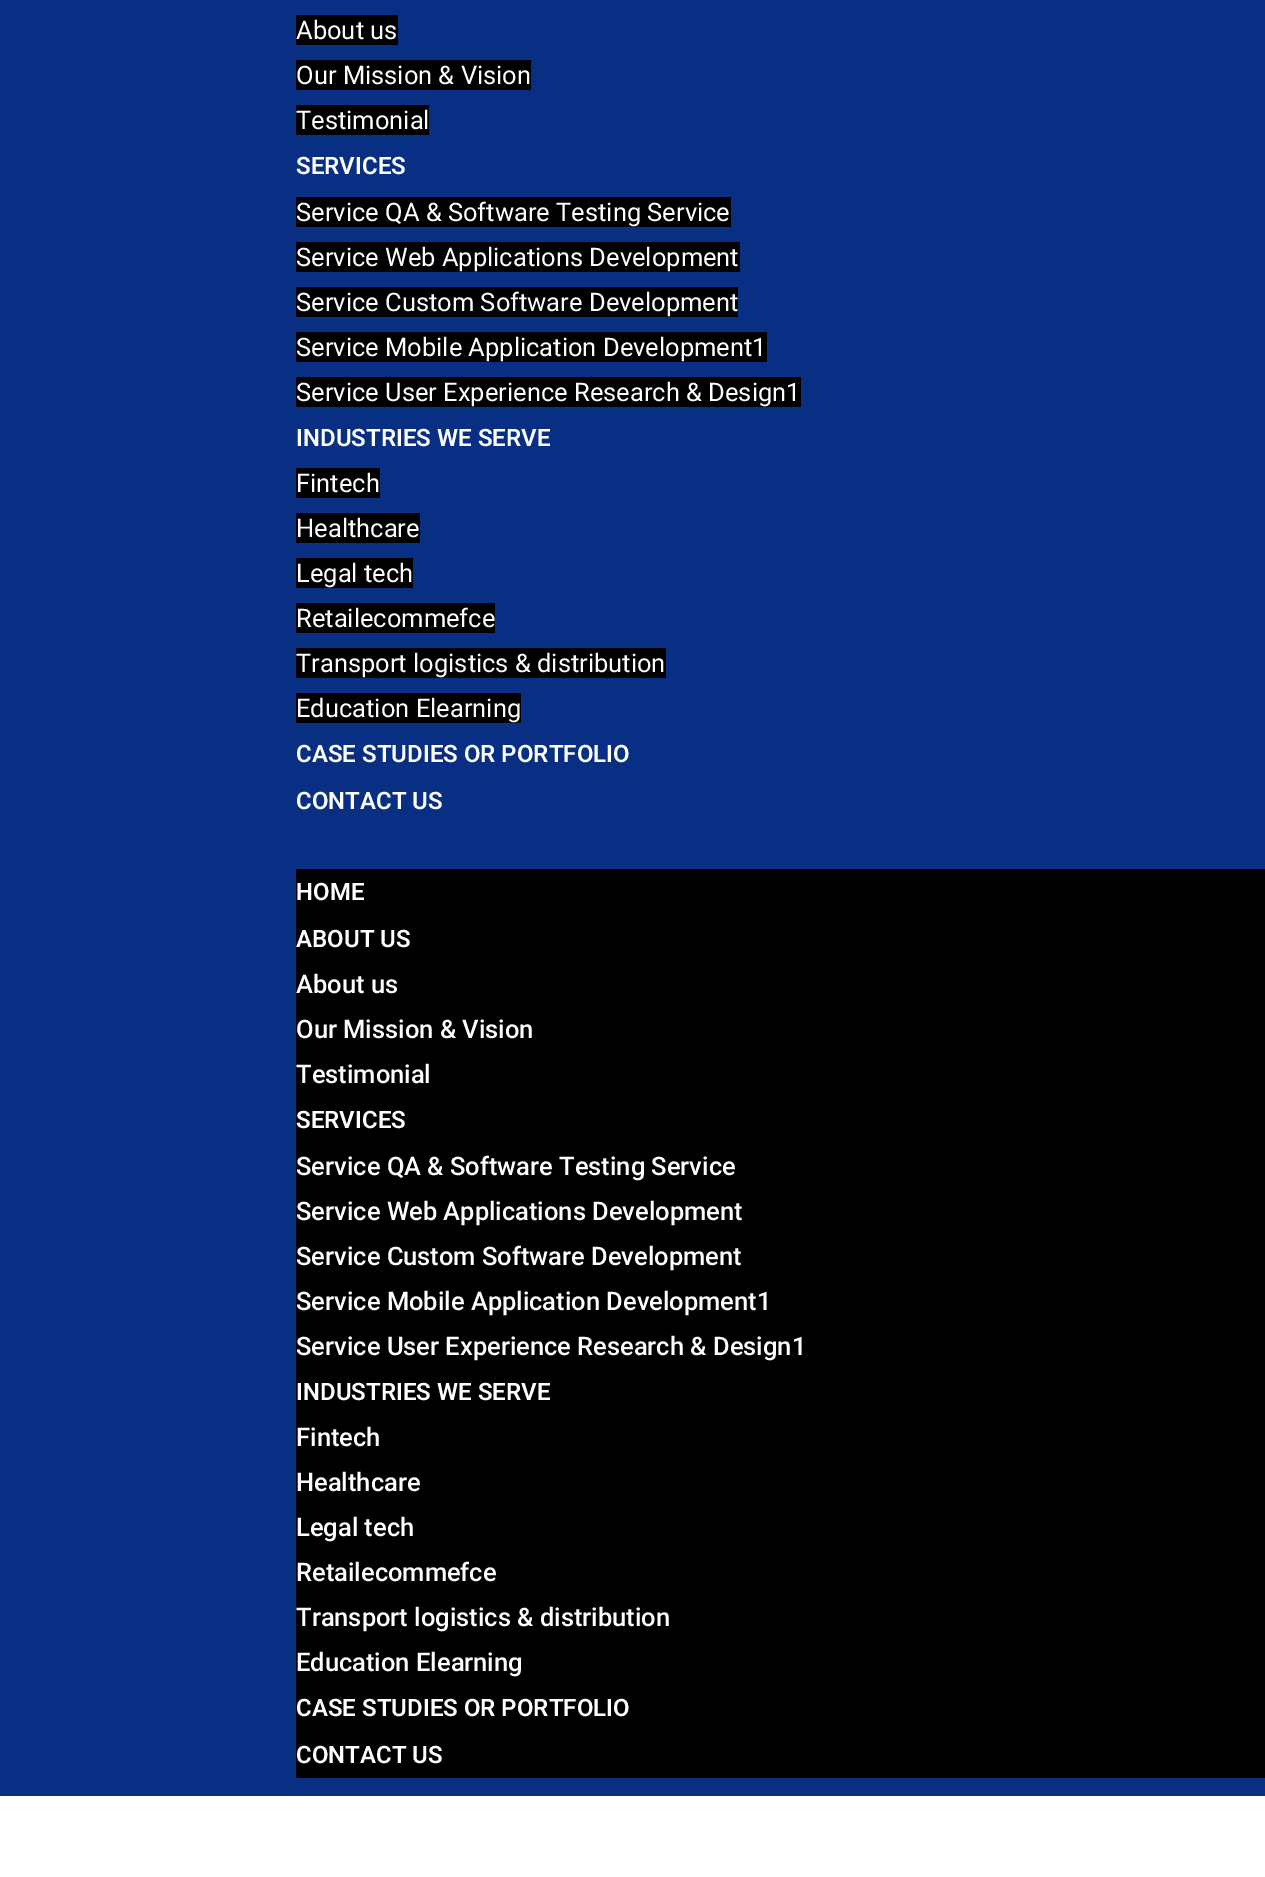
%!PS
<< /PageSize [1265 1877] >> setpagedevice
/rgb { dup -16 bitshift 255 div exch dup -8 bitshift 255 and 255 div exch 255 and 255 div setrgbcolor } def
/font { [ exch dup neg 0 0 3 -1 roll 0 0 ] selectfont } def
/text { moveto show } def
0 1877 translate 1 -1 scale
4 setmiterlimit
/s1 { /Roboto-Regular 25.5 font 16#FFFFFF rgb } def
/s2 { /Roboto-SemiBold 24 font 16#FFFFFF rgb } def
/s3 { /Roboto-Medium 25.5 font 16#FFFFFF rgb } def
16#FFFFFF rgb
0 0 1265 1877 rectfill
16#082F83 rgb
0 0 1265 1796 rectfill
16#000000 rgb
296 15 102 30 rectfill
s1
(About us) 296 39 text
16#000000 rgb
296 60 235 30 rectfill
s1
(Our Mission & Vision) 296 84 text
16#000000 rgb
296 105 133 30 rectfill
s1
(Testimonial) 296 129 text
s2
(SERVICES) 296 174 text
16#000000 rgb
296 197 435 30 rectfill
s1
(Service QA & Software Testing Service) 296 221 text
16#000000 rgb
296 242 444 30 rectfill
s1
(Service Web Applications Development) 296 266 text
16#000000 rgb
296 287 442 30 rectfill
s1
(Service Custom Software Development) 296 311 text
16#000000 rgb
296 332 471 30 rectfill
s1
(Service Mobile Application Development1) 296 356 text
16#000000 rgb
296 377 505 30 rectfill
s1
(Service User Experience Research & Design1) 296 401 text
s2
(INDUSTRIES WE SERVE) 296 446 text
16#000000 rgb
296 468 84 30 rectfill
s1
(Fintech) 296 492 text
16#000000 rgb
296 513 124 30 rectfill
s1
(Healthcare) 296 537 text
16#000000 rgb
296 558 117 30 rectfill
s1
(Legal tech) 296 582 text
16#000000 rgb
296 603 199 30 rectfill
s1
(Retailecommefce) 296 627 text
16#000000 rgb
296 648 370 30 rectfill
s1
(Transport logistics & distribution) 296 672 text
16#000000 rgb
296 693 225 30 rectfill
s1
(Education Elearning) 296 717 text
s2
(CASE STUDIES OR PORTFOLIO) 296 762 text
(CONTACT US) 296 809 text
16#000000 rgb
296 869 969 909 rectfill
s2
(HOME) 296 900 text
(ABOUT US) 296 947 text
s3
(About us) 296 993 text
(Our Mission & Vision) 296 1038 text
(Testimonial) 296 1083 text
s2
(SERVICES) 296 1128 text
s3
(Service QA & Software Testing Service) 296 1175 text
(Service Web Applications Development) 296 1220 text
(Service Custom Software Development) 296 1265 text
(Service Mobile Application Development1) 296 1310 text
(Service User Experience Research & Design1) 296 1355 text
s2
(INDUSTRIES WE SERVE) 296 1400 text
s3
(Fintech) 296 1446 text
(Healthcare) 296 1491 text
(Legal tech) 296 1536 text
(Retailecommefce) 296 1581 text
(Transport logistics & distribution) 296 1626 text
(Education Elearning) 296 1671 text
s2
(CASE STUDIES OR PORTFOLIO) 296 1716 text
(CONTACT US) 296 1763 text
showpage
